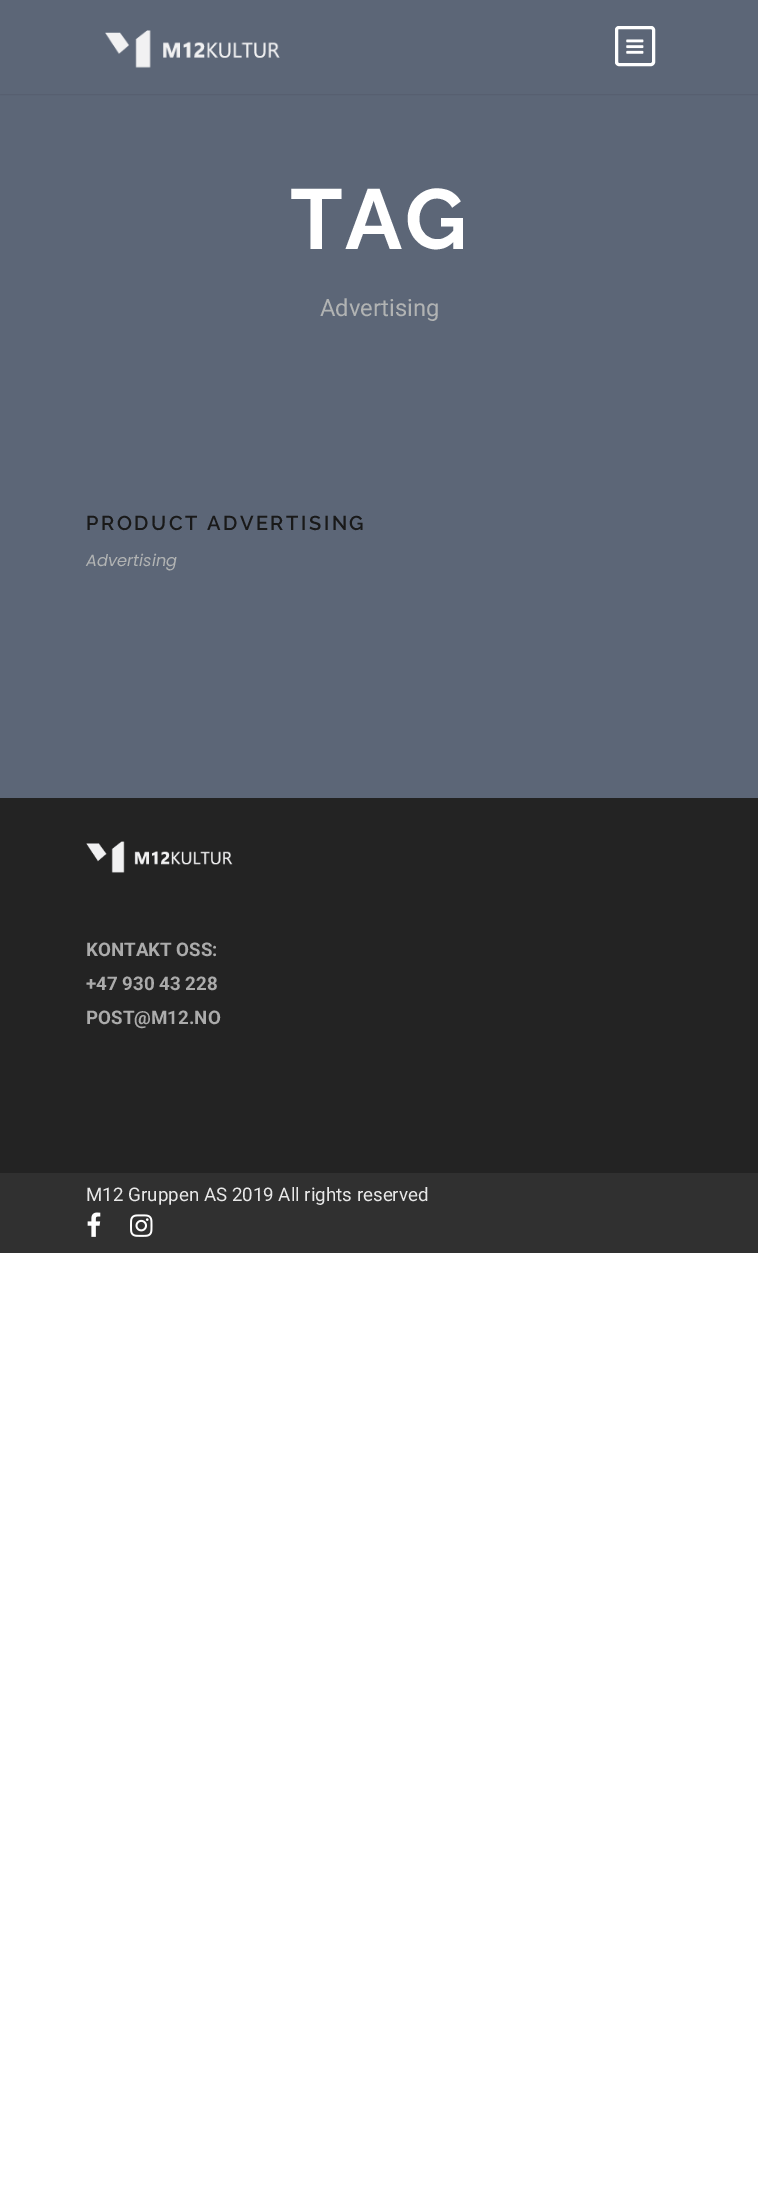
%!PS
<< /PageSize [758 2191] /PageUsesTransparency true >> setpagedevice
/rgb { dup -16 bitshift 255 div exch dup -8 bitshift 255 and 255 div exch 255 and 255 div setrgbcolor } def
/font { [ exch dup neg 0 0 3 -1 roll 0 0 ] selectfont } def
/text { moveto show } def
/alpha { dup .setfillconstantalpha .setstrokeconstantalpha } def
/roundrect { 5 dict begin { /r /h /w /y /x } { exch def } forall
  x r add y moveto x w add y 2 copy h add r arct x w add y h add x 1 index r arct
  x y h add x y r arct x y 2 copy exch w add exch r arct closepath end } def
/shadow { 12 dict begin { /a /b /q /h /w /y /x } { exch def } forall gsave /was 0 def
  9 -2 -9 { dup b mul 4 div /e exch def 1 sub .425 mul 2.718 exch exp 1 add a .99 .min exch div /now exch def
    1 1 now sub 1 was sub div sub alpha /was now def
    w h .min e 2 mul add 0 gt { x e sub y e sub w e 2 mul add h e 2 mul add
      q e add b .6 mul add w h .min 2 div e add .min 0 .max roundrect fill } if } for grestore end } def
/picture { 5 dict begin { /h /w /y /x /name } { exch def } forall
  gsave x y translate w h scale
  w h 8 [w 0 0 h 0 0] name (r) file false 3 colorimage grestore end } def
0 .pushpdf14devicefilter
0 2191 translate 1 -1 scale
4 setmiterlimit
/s1 { /Roboto-Regular 23.75 font 16#B1B3B3 rgb } def
/s2 { /Poppins-Italic 16.25 font 16#B1B3B3 rgb } def
/s3 { /Roboto-Bold 18.75 font 16#ABABAB rgb } def
/s4 { /Roboto-Regular 18.75 font 16#E8E8E8 rgb } def
16#FFFFFF rgb
0 0 758 2191 rectfill
16#5C6677 rgb
0 94 758 704 rectfill
16#000000 rgb
0 1 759 94 0 1 0.1 shadow
16#5C6677 rgb
0 0 758 94 rectfill
(pic1.raw) 105 30 175 38 picture
16#FFFFFF rgb
3 setlinewidth
616.5 27.5 37 37 2.5 roundrect stroke
(pic2.raw) 626 39 18 15 picture
/Raleway-Bold 85 font
290 249 moveto 2.5 0 (TAG) ashow
s1
(Advertising) 320 316 text
/Raleway-SemiBold 20 font
16#191919 rgb
86 530 moveto 2.5 0 (PRODUCT ADVERTISING) ashow
s2
(Advertising) 86 566 text
16#232323 rgb
0 798 758 375 rectfill
(pic3.raw) 86 841 147 32 picture
s3
(KONTAKT OSS:) 86 956 text
(+47 930 43 228) 86 990 text
(POST@M12.NO) 86 1024 text
16#303030 rgb
0 1173 758 80 rectfill
s4
(M12 Gruppen AS 2019 All rights reserved) 86 1201 text
(pic4.raw) 87 1212 14 25 picture
(pic5.raw) 130 1214 23 23 picture
.poppdf14devicefilter showpage
